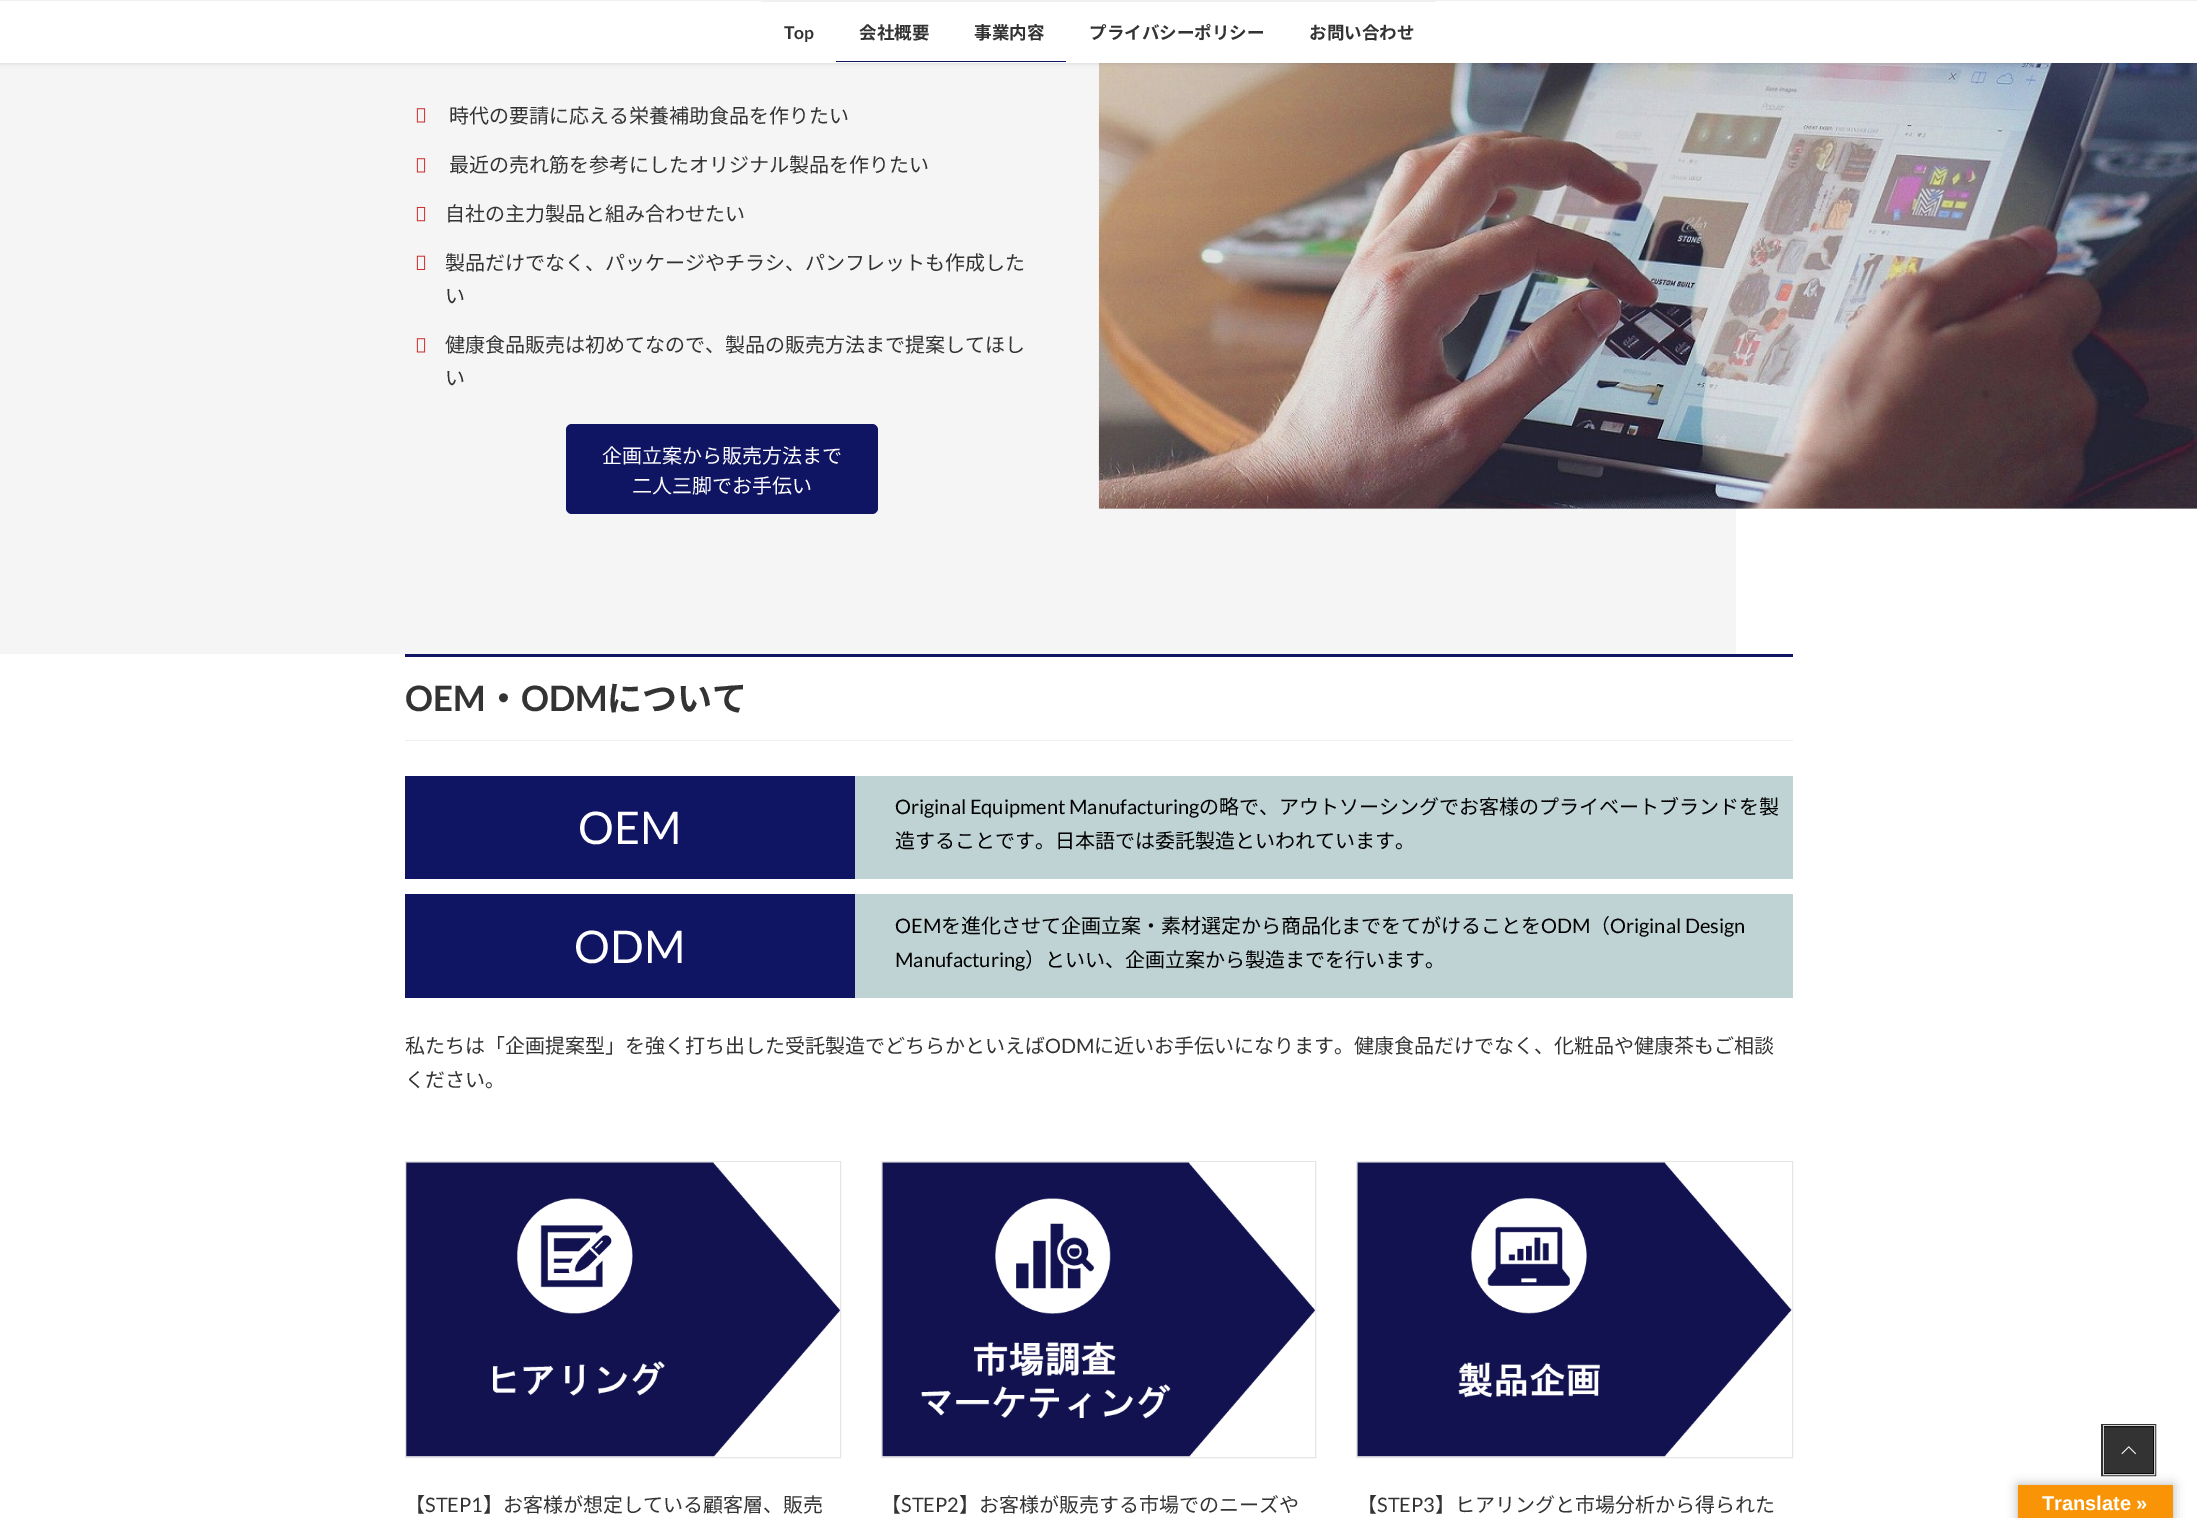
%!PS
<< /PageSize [2197 1518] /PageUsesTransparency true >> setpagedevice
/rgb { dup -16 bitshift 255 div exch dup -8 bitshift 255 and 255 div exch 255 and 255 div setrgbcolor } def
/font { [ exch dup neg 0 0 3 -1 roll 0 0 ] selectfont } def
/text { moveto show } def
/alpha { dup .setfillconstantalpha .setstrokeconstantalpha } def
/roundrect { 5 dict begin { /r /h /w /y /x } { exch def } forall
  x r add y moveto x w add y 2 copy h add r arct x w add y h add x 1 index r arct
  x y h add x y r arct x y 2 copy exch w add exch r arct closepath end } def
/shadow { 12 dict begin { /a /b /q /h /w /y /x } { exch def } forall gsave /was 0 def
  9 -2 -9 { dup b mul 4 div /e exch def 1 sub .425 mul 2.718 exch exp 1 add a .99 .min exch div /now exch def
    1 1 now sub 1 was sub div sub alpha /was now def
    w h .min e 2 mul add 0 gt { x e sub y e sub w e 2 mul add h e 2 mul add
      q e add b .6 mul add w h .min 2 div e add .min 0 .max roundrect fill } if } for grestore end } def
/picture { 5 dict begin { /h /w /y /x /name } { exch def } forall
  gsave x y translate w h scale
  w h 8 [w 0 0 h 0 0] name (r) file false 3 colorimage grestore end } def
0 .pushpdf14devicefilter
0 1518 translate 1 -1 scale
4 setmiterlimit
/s1 { /Lato-Bold 17.5 font 16#333333 rgb } def
/s2 { /NotoSansJP-Bold 17.5 font 16#333333 rgb } def
/s3 { /NotoSansJP-Regular 20 font 16#333333 rgb } def
/s4 { /NotoSansJP-Regular 20 font 16#FFFFFF rgb } def
/s5 { /Lato-Bold 35 font 16#333333 rgb } def
/s6 { /NotoSansJP-Bold 35 font 16#333333 rgb } def
/s7 { /Lato-Regular 45 font 16#FFFFFF rgb } def
/s8 { /Lato-Regular 20 font 16#000000 rgb } def
/s9 { /NotoSansJP-Regular 20 font 16#000000 rgb } def
/s10 { /Lato-Regular 20 font 16#333333 rgb } def
/s11 { /LiberationSans-Bold 20 font 16#FFFFFF rgb } def
16#FFFFFF rgb
0 0 2197 1518 rectfill
16#E6E6E6 rgb
1736 508 461 1 rectfill
16#F5F5F5 rgb
0 63 1736 591 rectfill
16#DDDDDD rgb
1099 508 637 1 rectfill
(pic4.raw) 1098 63 1099 446 picture
16#000000 rgb
0 1 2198 63 0 2 0.1 shadow
16#FFFFFF rgb
0 1 2197 62 rectfill
16#F0F0F0 rgb
0 0 2197 1 rectfill
761 1 675 1 rectfill
s1
(Top) 784 39 text
s2
(会社概要) 859 39 text
16#0F1463 rgb
836 61 230 1 rectfill
s2
(事業内容) 974 39 text
(プライバシーポリシー) 1089 39 text
(お問い合わせ) 1309 39 text
(pic1.raw) 416 108 10 15 picture
s3
(時代の要請に応える栄養補助食品を作りたい) 449 123 text
(pic1.raw) 416 158 10 15 picture
(最近の売れ筋を参考にしたオリジナル製品を作りたい) 449 172 text
(pic2.raw) 416 206 10 16 picture
(自社の主力製品と組み合わせたい) 445 221 text
(pic3.raw) 416 255 10 15 picture
(製品だけでなく、パッケージやチラシ、パンフレットも作成した) 445 270 text
(い) 445 303 text
(pic1.raw) 416 338 10 15 picture
(健康食品販売は初めてなので、製品の販売方法まで提案してほし) 445 352 text
(い) 445 385 text
16#0F1463 rgb
566 424 312 90 6 roundrect fill
s4
(企画立案から販売方法まで) 602 463 text
(二人三脚でお手伝い) 632 493 text
16#0F1463 rgb
405 654 1388 3 rectfill
16#F0F0F0 rgb
405 740 1388 1 rectfill
s5
(OEM) 405 711 text
s6
(・) 486 711 text
s5
(ODM) 521 711 text
s6
(について) 607 711 text
16#BFD2D4 rgb
855 776 938 103 rectfill
16#0F1463 rgb
405 776 450 103 rectfill
s7
(OEM) 578 844 text
s8
(Original Equipment Manufacturing) 895 814 text
s9
(の略で、アウトソーシングでお客様のプライベートブランドを製) 1199 814 text
(造することです。日本語では委託製造といわれています。) 895 848 text
16#BFD2D4 rgb
855 894 938 104 rectfill
16#0F1463 rgb
405 894 450 104 rectfill
s7
(ODM) 574 963 text
s8
(OEM) 895 933 text
s9
(を進化させて企画立案・素材選定から商品化までをてがけることを) 941 933 text
s8
(ODM) 1541 933 text
s9
(（) 1590 933 text
s8
(Original Design) 1610 933 text
(Manufacturing) 895 967 text
s9
(）といい、企画立案から製造までを行います。) 1025 967 text
s3
(私たちは「企画提案型」を強く打ち出した受託製造でどちらかといえば) 405 1053 text
s10
(ODM) 1045 1053 text
s3
(に近いお手伝いになります。健康食品だけでなく、化粧品や健康茶もご相談) 1094 1053 text
(ください。) 405 1087 text
16#E5E5E5 rgb
405.5 1161.5 435 296 rectstroke
(pic5.raw) 406 1162 434 295 picture
s3
(【) 405 1512 text
s10
(STEP1) 425 1512 text
s3
(】お客様が想定している顧客層、販売) 483 1512 text
16#E5E5E5 rgb
881.5 1161.5 434 296 rectstroke
(pic6.raw) 882 1162 433 295 picture
s3
(【) 881 1512 text
s10
(STEP2) 901 1512 text
s3
(】お客様が販売する市場でのニーズや) 959 1512 text
16#E5E5E5 rgb
1356.5 1161.5 436 296 rectstroke
(pic7.raw) 1357 1162 435 295 picture
s3
(【) 1357 1512 text
s10
(STEP3) 1377 1512 text
s3
(】ヒアリングと市場分析から得られた) 1435 1512 text
3 setlinewidth
2102.5 1425.5 52 49 rectstroke
16#D6D6D6 rgb
1 setlinewidth
2103.5 1425.5 51 49 rectstroke
0.8 alpha
16#000000 rgb
2104 1426 50 48 rectfill
1 alpha
(pic8.raw) 2121 1446 15 9 picture
2018 1485 155 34 0 5.5 0.3 shadow
16#F89406 rgb
2018 1485 155 33 rectfill
s11
(Translate ») 2042 1510 text
.poppdf14devicefilter showpage
